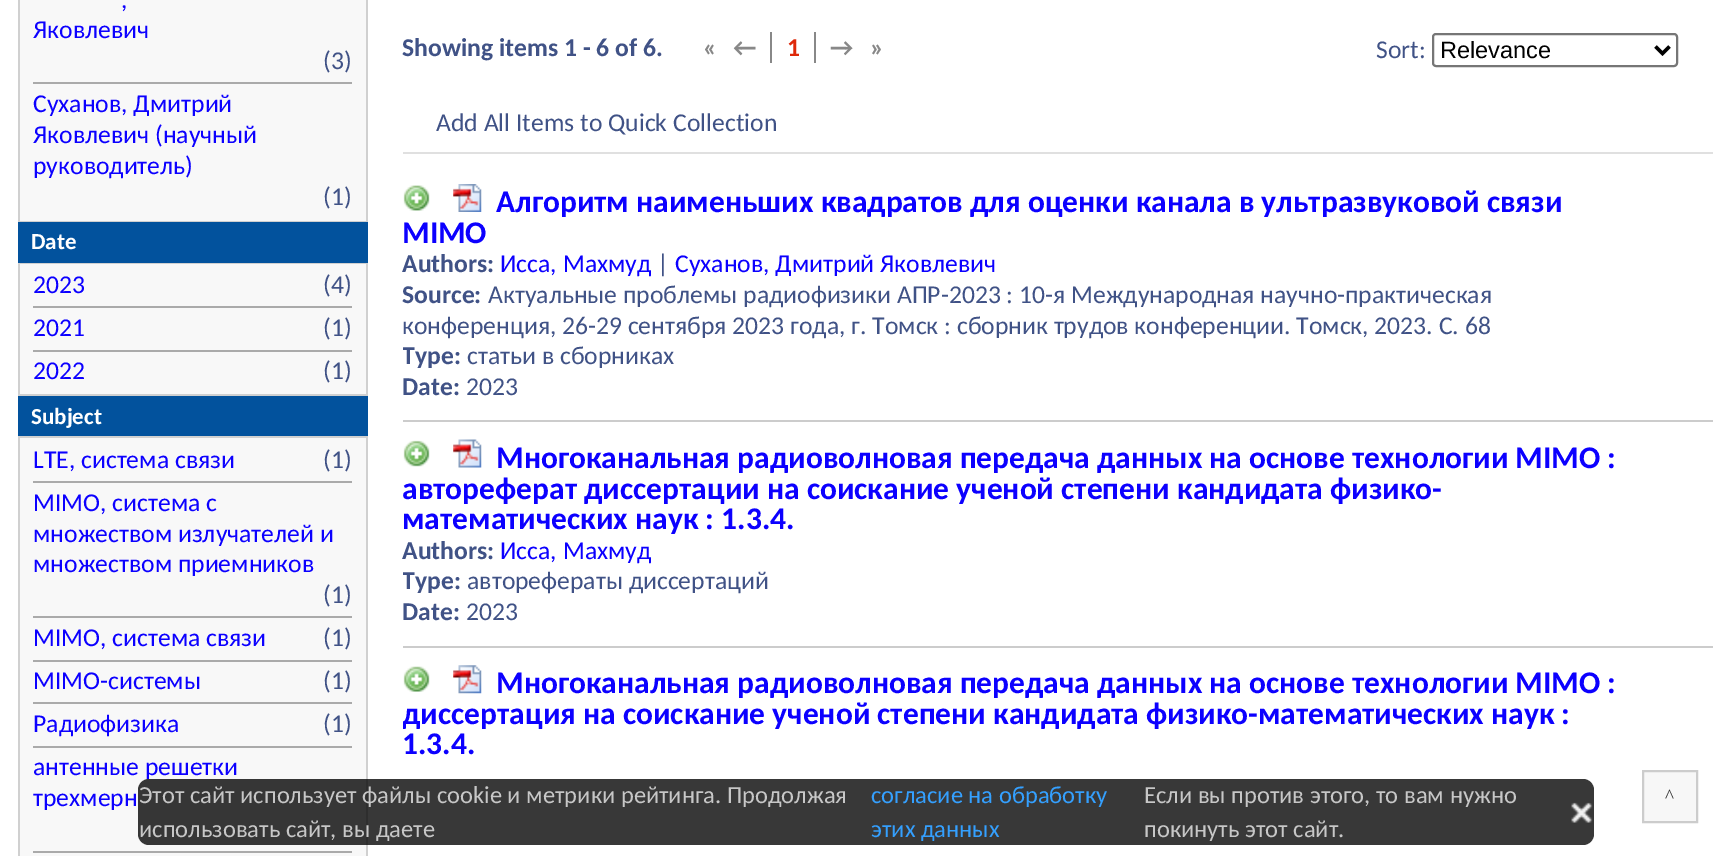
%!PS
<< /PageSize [1731 856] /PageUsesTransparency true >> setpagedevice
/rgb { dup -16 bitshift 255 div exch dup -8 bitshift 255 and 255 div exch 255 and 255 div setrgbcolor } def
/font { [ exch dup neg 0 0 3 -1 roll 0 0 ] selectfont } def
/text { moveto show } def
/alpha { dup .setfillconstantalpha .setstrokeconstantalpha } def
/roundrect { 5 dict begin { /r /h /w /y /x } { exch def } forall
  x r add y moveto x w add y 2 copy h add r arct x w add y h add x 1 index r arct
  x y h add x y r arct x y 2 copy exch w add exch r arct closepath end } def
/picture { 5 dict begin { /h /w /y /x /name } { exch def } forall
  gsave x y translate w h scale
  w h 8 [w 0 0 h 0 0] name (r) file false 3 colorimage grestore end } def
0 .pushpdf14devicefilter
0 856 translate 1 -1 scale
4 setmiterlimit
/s1 { /Carlito-Regular 25.65 font 16#0C00FF rgb } def
/s2 { /Carlito-Regular 25.65 font 16#405286 rgb } def
/s3 { /Carlito-Bold 23 font 16#FFFFFF rgb } def
/s4 { /Carlito-Bold 25.65 font 16#405286 rgb } def
/s5 { /Carlito-Bold 25.65 font 16#888888 rgb } def
/s6 { /Carlito-Bold 25.65 font 16#DE290A rgb } def
/s7 { /LiberationSans-Regular 23.5 font 16#000000 rgb } def
/s8 { /Carlito-Bold 31.5 font 16#0C00FF rgb } def
/s9 { /Carlito-Regular 24.5 font 16#C7C7C7 rgb } def
/s10 { /Carlito-Regular 24.5 font 16#34A0FF rgb } def
/s11 { /LiberationSerif-Regular 19 font 16#333333 rgb } def
16#FFFFFF rgb
0 0 1731 856 rectfill
16#D0D0D0 rgb
18 221 350 1 rectfill
16#F8F8F8 rgb
20 0 346 221 rectfill
16#D0D0D0 rgb
366 0 2 221 rectfill
18 0 2 221 rectfill
s1
(,) 121 8 text
(Яковлевич) 33 38 text
s2
(\(3\)) 323 69 text
16#AAAAAA rgb
33 82 319 2 rectfill
s1
(Суханов, Дмитрий) 33 112 text
(Яковлевич \(научный) 33 143 text
(руководитель\)) 33 174 text
s2
(\(1\)) 323 205 text
16#D0D0D0 rgb
18 394 350 2 rectfill
16#02529D rgb
18 222 350 41 rectfill
16#D0D0D0 rgb
18 263 350 1 rectfill
s3
(Date) 31 249 text
16#F8F8F8 rgb
20 264 346 130 rectfill
16#D0D0D0 rgb
366 264 2 130 rectfill
18 264 2 130 rectfill
s1
(2023) 33 293 text
s2
(\(4\)) 323 293 text
16#AAAAAA rgb
33 306 319 2 rectfill
s1
(2021) 33 336 text
s2
(\(1\)) 323 336 text
16#AAAAAA rgb
33 350 319 2 rectfill
s1
(2022) 33 379 text
s2
(\(1\)) 323 379 text
16#02529D rgb
18 396 350 40 rectfill
16#D0D0D0 rgb
18 436 350 2 rectfill
s3
(Subject) 31 424 text
16#F8F8F8 rgb
20 438 346 418 rectfill
16#D0D0D0 rgb
366 438 2 418 rectfill
18 438 2 418 rectfill
s1
(LTE, система связи) 33 468 text
s2
(\(1\)) 323 468 text
16#AAAAAA rgb
33 481 319 2 rectfill
s1
(MIMO, система с) 33 511 text
(множеством излучателей и) 33 542 text
(множеством приемников) 33 572 text
s2
(\(1\)) 323 603 text
16#AAAAAA rgb
33 616 319 2 rectfill
s1
(MIMO, система связи) 33 646 text
s2
(\(1\)) 323 646 text
16#AAAAAA rgb
33 660 319 2 rectfill
s1
(MIMO-системы) 33 689 text
s2
(\(1\)) 323 689 text
16#AAAAAA rgb
33 702 319 2 rectfill
s1
(Радиофизика) 33 732 text
s2
(\(1\)) 323 732 text
16#AAAAAA rgb
33 746 319 2 rectfill
s1
(антенные решетки) 33 775 text
(трехмерн) 33 806 text
16#AAAAAA rgb
33 851 319 2 rectfill
s4
(Showing items 1 - 6 of 6.) 402 56 text
s5
(«) 703 56 text
(←) 733 56 text
770 32 2 31 rectfill
s6
(1) 787 56 text
s5
(→) 830 56 text
814 32 2 31 rectfill
(») 870 56 text
s2
(Sort:) 1376 58 text
16#767676 rgb
2 setlinewidth
1433 34 244 32 3 roundrect stroke
16#000000 rgb
3.5 setlinewidth
1655.5 46.5 moveto 1662.5 53.5 lineto 1669.5 46.5 lineto stroke
s7
(Relevance) 1440 58 text
s2
(Add All Items to Quick Collection) 436 131 text
16#E0E0E0 rgb
403 152 1310 2 rectfill
16#CCCCCC rgb
403 420 1310 2 rectfill
(pic1.raw) 403 185 27 26 picture
(pic2.raw) 453 184 29 28 picture
s8
(Алгоритм наименьших квадратов для оценки канала в ультразвуковой связи) 496 212 text
(MIMO) 402 243 text
s4
(Authors:) 402 272 text
s1
(Исса, Махмуд) 500 272 text
s2
(|) 657 272 text
s1
(Суханов, Дмитрий Яковлевич) 675 272 text
s4
(Source:) 402 303 text
s2
(Актуальные проблемы радиофизики АПР-2023 : 10-я Международная научно-практическая) 488 303 text
(конференция, 26-29 сентября 2023 года, г. Томск : сборник трудов конференции. Томск, 2023. С. 68) 402 334 text
gsave
403 166 1310 254 rectclip
s4
(Type:) 402 364 text
grestore
(статьи в сборниках) 467 364 text
s4
(Date:) 402 395 text
s2
(2023) 466 395 text
16#CCCCCC rgb
403 646 1310 2 rectfill
(pic3.raw) 403 440 27 27 picture
(pic4.raw) 453 439 29 29 picture
s8
(Многоканальная радиоволновая передача данных на основе технологии MIMO :) 496 468 text
(автореферат диссертации на соискание ученой степени кандидата физико-) 402 499 text
(математических наук : 1.3.4.) 402 529 text
s4
(Authors:) 402 559 text
s1
(Исса, Махмуд) 500 559 text
gsave
403 422 1310 224 rectclip
s4
(Type:) 402 589 text
grestore
s2
(авторефераты диссертаций) 467 589 text
s4
(Date:) 402 620 text
s2
(2023) 466 620 text
(pic5.raw) 403 666 27 26 picture
(pic6.raw) 453 665 29 29 picture
s8
(Многоканальная радиоволновая передача данных на основе технологии MIMO :) 496 693 text
gsave
403 648 1310 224 rectclip
(диссертация на соискание ученой степени кандидата физико-математических наук :) 402 724 text
grestore
(1.3.4.) 402 754 text
0.78 alpha
16#000000 rgb
138 779 1456 66 11 roundrect fill
1 alpha
s9
(Этот сайт использует файлы cookie и метрики рейтинга. Продолжая) 139 803 text
s10
(согласие на обработку) 871 803 text
(этих данных) 871 837 text
s9
(Если вы против этого, то вам нужно) 1144 803 text
(pic7.raw) 1571 802 22 21 picture
(использовать сайт, вы даете) 139 837 text
(покинуть этот сайт.) 1144 837 text
16#F7F7F7 rgb
1643 771 moveto 1697 771 lineto 1697 822 lineto 1643 822 lineto closepath gsave fill grestore
16#CCCCCC rgb
2 setlinewidth
stroke
s11
(^) 1665 802 text
.poppdf14devicefilter showpage
